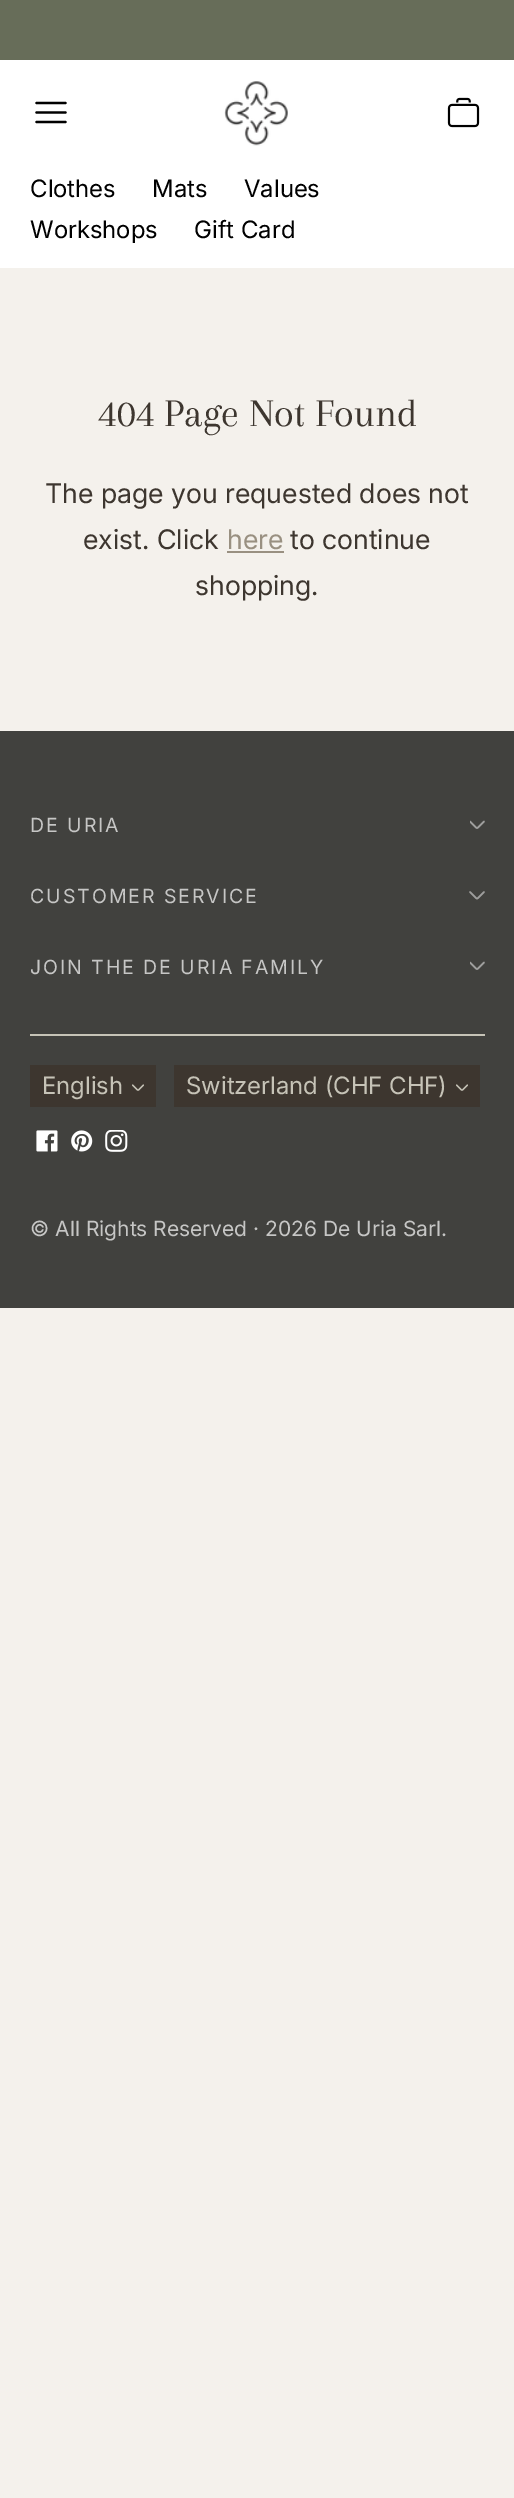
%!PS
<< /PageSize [514 2498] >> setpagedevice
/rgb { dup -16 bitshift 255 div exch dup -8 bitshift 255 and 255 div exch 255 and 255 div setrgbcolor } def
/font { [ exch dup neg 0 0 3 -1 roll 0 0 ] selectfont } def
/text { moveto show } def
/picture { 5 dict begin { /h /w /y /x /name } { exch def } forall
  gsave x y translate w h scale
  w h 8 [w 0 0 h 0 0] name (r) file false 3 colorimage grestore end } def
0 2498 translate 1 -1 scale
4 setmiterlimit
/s1 { /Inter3-Regular 24 font 16#000000 rgb } def
/s2 { /Arapey-Regular 40.5 font 16#3D362F rgb } def
/s3 { /Inter-Regular 27 font 16#3D362F rgb } def
/s4 { /Inter-Regular 27 font 16#999081 rgb } def
/s5 { /Inter3-Regular 24 font 16#C6C3B7 rgb } def
/s6 { /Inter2-Regular 21 font 16#C6C6C5 rgb } def
16#F4F1EC rgb
0 0 514 2498 rectfill
16#676D59 rgb
0 0 514 60 rectfill
16#FFFFFF rgb
0 60 514 208 rectfill
16#000000 rgb
2.2 setlinewidth
1 setlinecap
1 setlinejoin
36.5 112.5 moveto 65.5 112.5 lineto 36.5 103 moveto 65.5 103 lineto 36.5 122 moveto 65.5 122 lineto stroke
(pic1.raw) 224 81 64 65 picture
(pic2.raw) 447 97 33 31 picture
s1
(Clothes) 30 197 text
(Mats) 152 197 text
(Values) 244 197 text
(Workshops) 30 238 text
(Gift Card) 194 238 text
s2
(404 Page Not Found) 98 426 text
s3
(The page you requested does not) 45 503 text
(exist. Click) 83 549 text
s4
(here) 227 549 text
227 551 57 2 rectfill
s3
(to continue) 290 549 text
(shopping.) 195 595 text
16#41413E rgb
0 731 514 577 rectfill
/Inter2-Regular 19.5 font
16#C6C6C5 rgb
30 832 moveto 1.95 0 (DE URIA) ashow
gsave
470 818 15 15 rectclip
16#9E9E9D rgb
1.5 setlinewidth
470 821.5 moveto 475.5 827 lineto 477 828.5 477 828.5 478.5 827 curveto 484 821.5 lineto stroke
grestore
30 903 moveto 1.95 0 (CUSTOMER SERVICE) ashow
16#9E9E9D rgb
1.5 setlinewidth
470 892 moveto 475.5 897.5 lineto 477 899 477 899 478.5 897.5 curveto 484 892 lineto stroke
16#C6C6C5 rgb
30 974 moveto 1.95 0 (JOIN THE DE URIA FAMILY) ashow
gsave
470 959 15 15 rectclip
16#9E9E9D rgb
470 962.5 moveto 475.5 968 lineto 477 969.5 477 969.5 478.5 968 curveto 484 962.5 lineto stroke
grestore
16#C6C3B7 rgb
30 1034 455 2 rectfill
16#3D362F rgb
30 1065 126 42 rectfill
s5
(English) 42 1094 text
1.2 setlinewidth
132.5 1085 moveto 137.5 1090 lineto 138.5 1090 lineto 143.5 1085 lineto stroke
16#3D362F rgb
174 1065 306 42 rectfill
s5
(Switzerland \(CHF CHF\)) 186 1094 text
456.5 1085 moveto 461.5 1090 lineto 462.5 1090 lineto 467.5 1085 lineto stroke
(pic3.raw) 36 1130 22 22 picture
(pic4.raw) 71 1130 22 22 picture
(pic5.raw) 105 1130 23 22 picture
s6
(© All Rights Reserved · 2026 De Uria Sarl.) 30 1236 text
showpage
